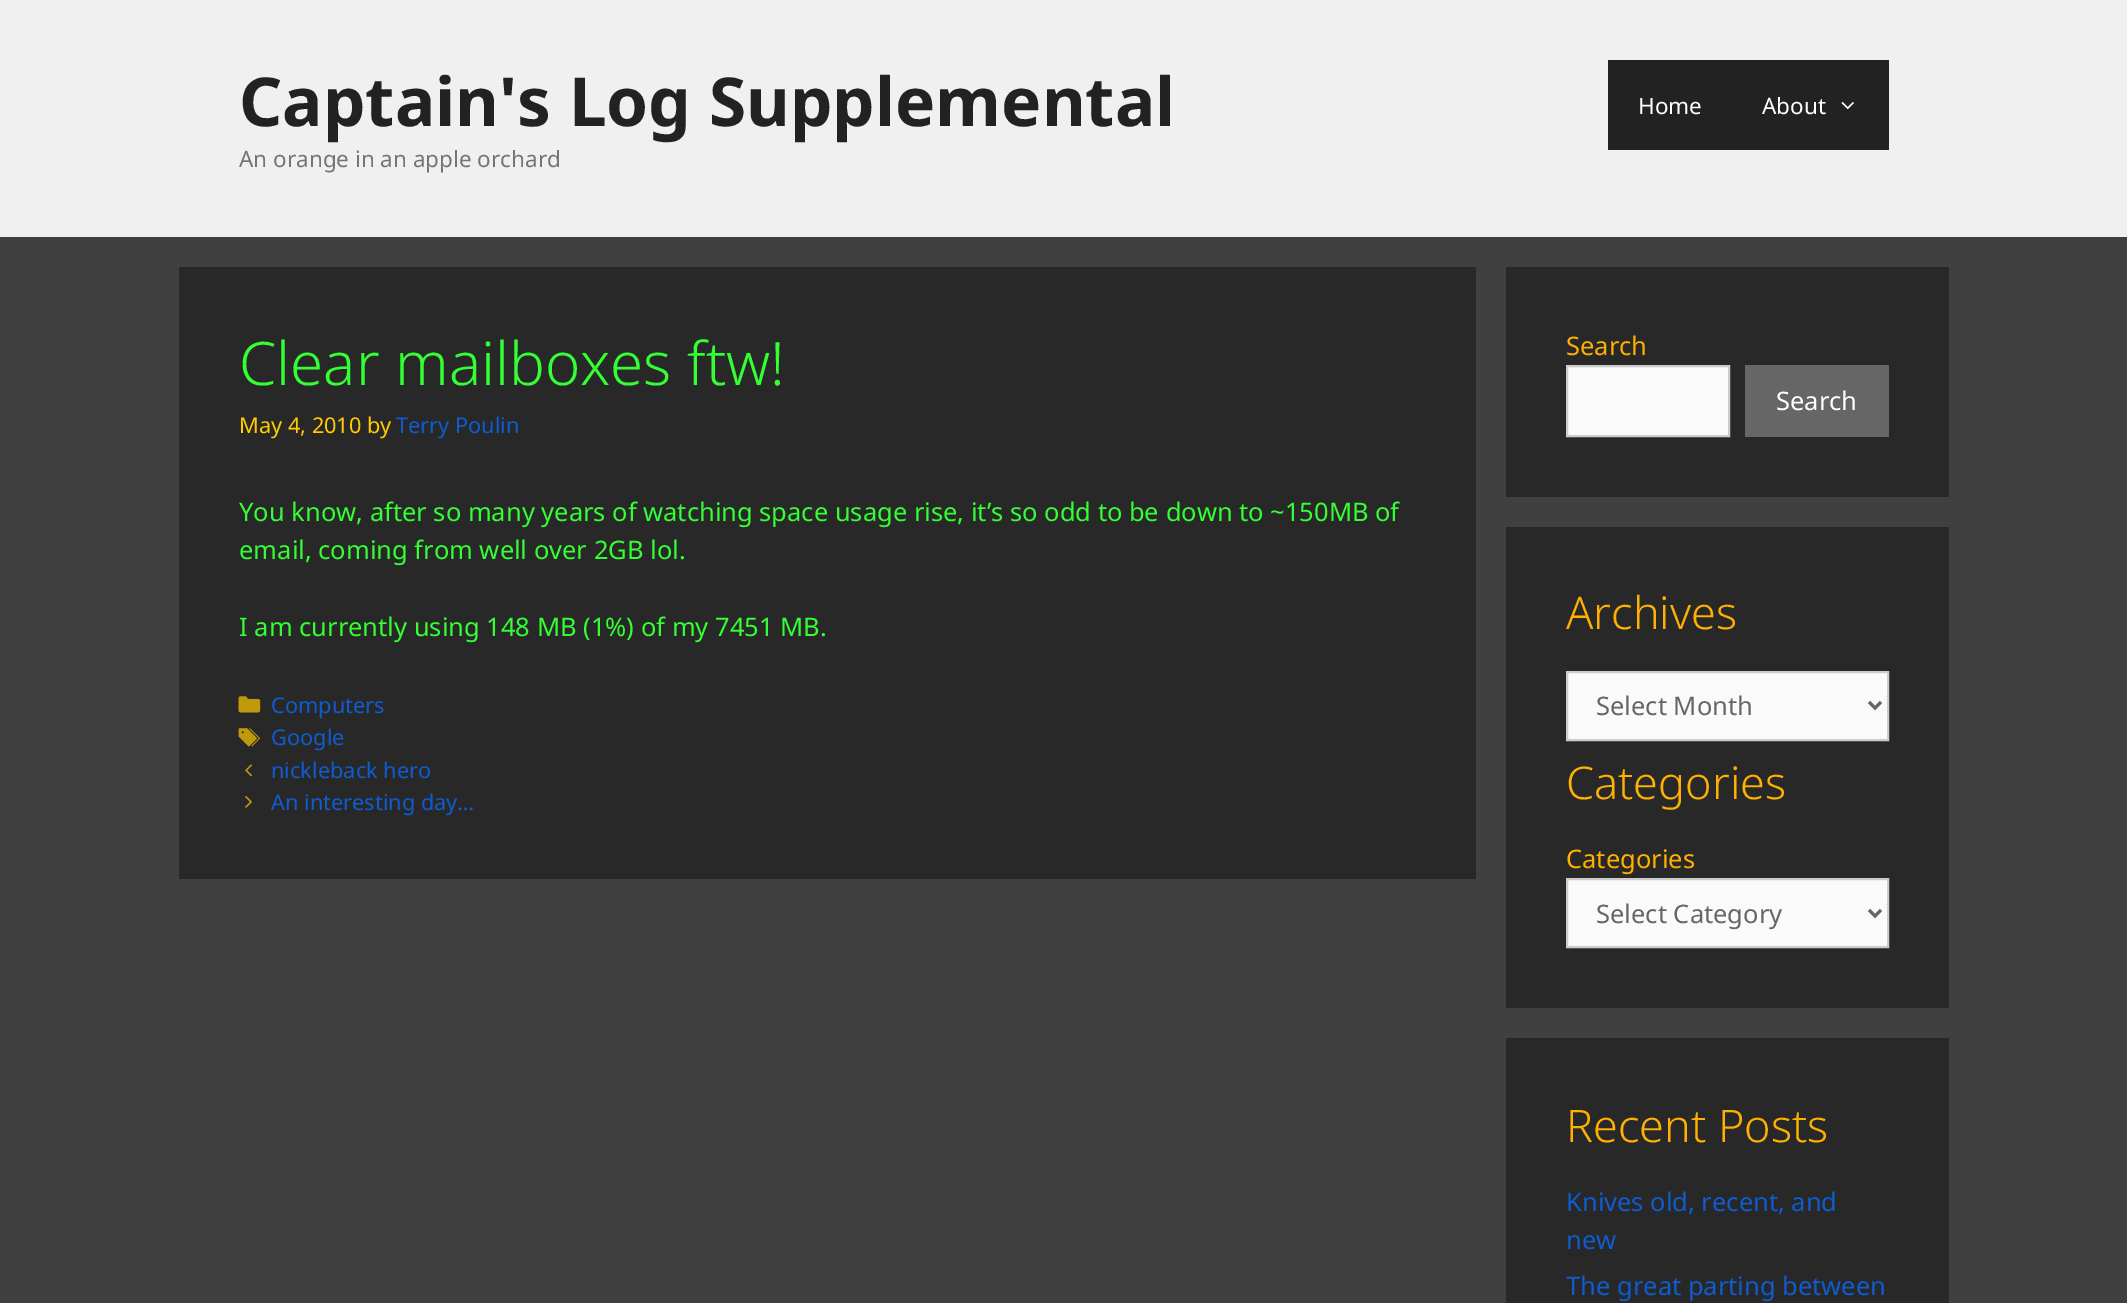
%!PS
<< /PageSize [2127 1303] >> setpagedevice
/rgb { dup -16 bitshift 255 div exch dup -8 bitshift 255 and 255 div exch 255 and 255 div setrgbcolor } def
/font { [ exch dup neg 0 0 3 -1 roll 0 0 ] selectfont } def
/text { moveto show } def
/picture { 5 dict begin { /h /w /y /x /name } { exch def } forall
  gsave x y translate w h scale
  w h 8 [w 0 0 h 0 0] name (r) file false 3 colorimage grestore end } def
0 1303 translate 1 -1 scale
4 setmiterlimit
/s1 { /NotoSans-Bold 67.5 font 16#222222 rgb } def
/s2 { /NotoSans-Regular 22.5 font 16#757575 rgb } def
/s3 { /NotoSans-Regular 22.5 font 16#FFFFFF rgb } def
/s4 { /NotoSans-Light 60 font 16#33FF33 rgb } def
/s5 { /NotoSans-Regular 21.75 font 16#FFCC00 rgb } def
/s6 { /NotoSans-Regular 21.75 font 16#0F5CD0 rgb } def
/s7 { /NotoSans-Regular 25.5 font 16#33FF33 rgb } def
/s8 { /NotoSans-Regular 25.5 font 16#FFB000 rgb } def
/s9 { /NotoSans-Regular 25.5 font 16#FFFFFF rgb } def
/s10 { /NotoSans-Light 45 font 16#FFB000 rgb } def
/s11 { /NotoSans-Regular 25.5 font 16#666666 rgb } def
/s12 { /NotoSans-Regular 25.5 font 16#0F5CD0 rgb } def
16#404040 rgb
0 0 2127 1303 rectfill
16#F0F0F0 rgb
0 0 2127 237 rectfill
s1
(Captain's Log Supplemental) 239 126 text
s2
(An orange in an apple orchard) 239 167 text
16#222222 rgb
1608 60 281 90 rectfill
s3
(Home) 1638 114 text
(About) 1762 114 text
(pic1.raw) 1841 102 13 8 picture
16#282828 rgb
179 267 1297 612 rectfill
s4
(Clear mailboxes ftw!) 239 385 text
s5
(May 4, 2010 by) 239 433 text
s6
(Terry Poulin) 396 433 text
s7
(You know, after so many years of watching space usage rise, it’s so odd to be down to ~150MB of) 239 521 text
(email, coming from well over 2GB lol.) 239 559 text
(I am currently using 148 MB \(1%\) of my 7451 MB.) 239 636 text
(pic2.raw) 238 696 23 17 picture
s6
(Computers) 271 713 text
(pic3.raw) 238 728 22 19 picture
(Google) 271 745 text
(pic4.raw) 245 764 7 13 picture
(nickleback hero) 271 778 text
(pic5.raw) 245 795 7 13 picture
(An interesting day…) 271 810 text
16#282828 rgb
1506 267 443 230 rectfill
s8
(Search) 1566 355 text
16#FAFAFA rgb
1567 366 moveto 1729 366 lineto 1729 436 lineto 1567 436 lineto closepath gsave fill grestore
16#CCCCCC rgb
2 setlinewidth
stroke
16#666666 rgb
1745 365 144 72 rectfill
s9
(Search) 1776 410 text
16#282828 rgb
1506 527 443 481 rectfill
s10
(Archives) 1566 629 text
16#FAFAFA rgb
1567 672 moveto 1888 672 lineto 1888 740 lineto 1567 740 lineto closepath gsave fill grestore
16#CCCCCC rgb
stroke
16#666666 rgb
3 setlinewidth
1869 702 moveto 1875 708 lineto 1881 702 lineto stroke
s11
(Select Month) 1596 715 text
s10
(Categories) 1566 799 text
s8
(Categories) 1566 868 text
16#FAFAFA rgb
1567 879 moveto 1888 879 lineto 1888 947 lineto 1567 947 lineto closepath gsave fill grestore
16#CCCCCC rgb
2 setlinewidth
stroke
16#666666 rgb
3 setlinewidth
1869 910 moveto 1875 916 lineto 1881 910 lineto stroke
(Select Category) 1596 923 text
16#282828 rgb
1506 1038 443 265 rectfill
s10
(Recent Posts) 1566 1142 text
s12
(Knives old, recent, and) 1566 1211 text
(new) 1566 1249 text
(The great parting between) 1566 1295 text
showpage
